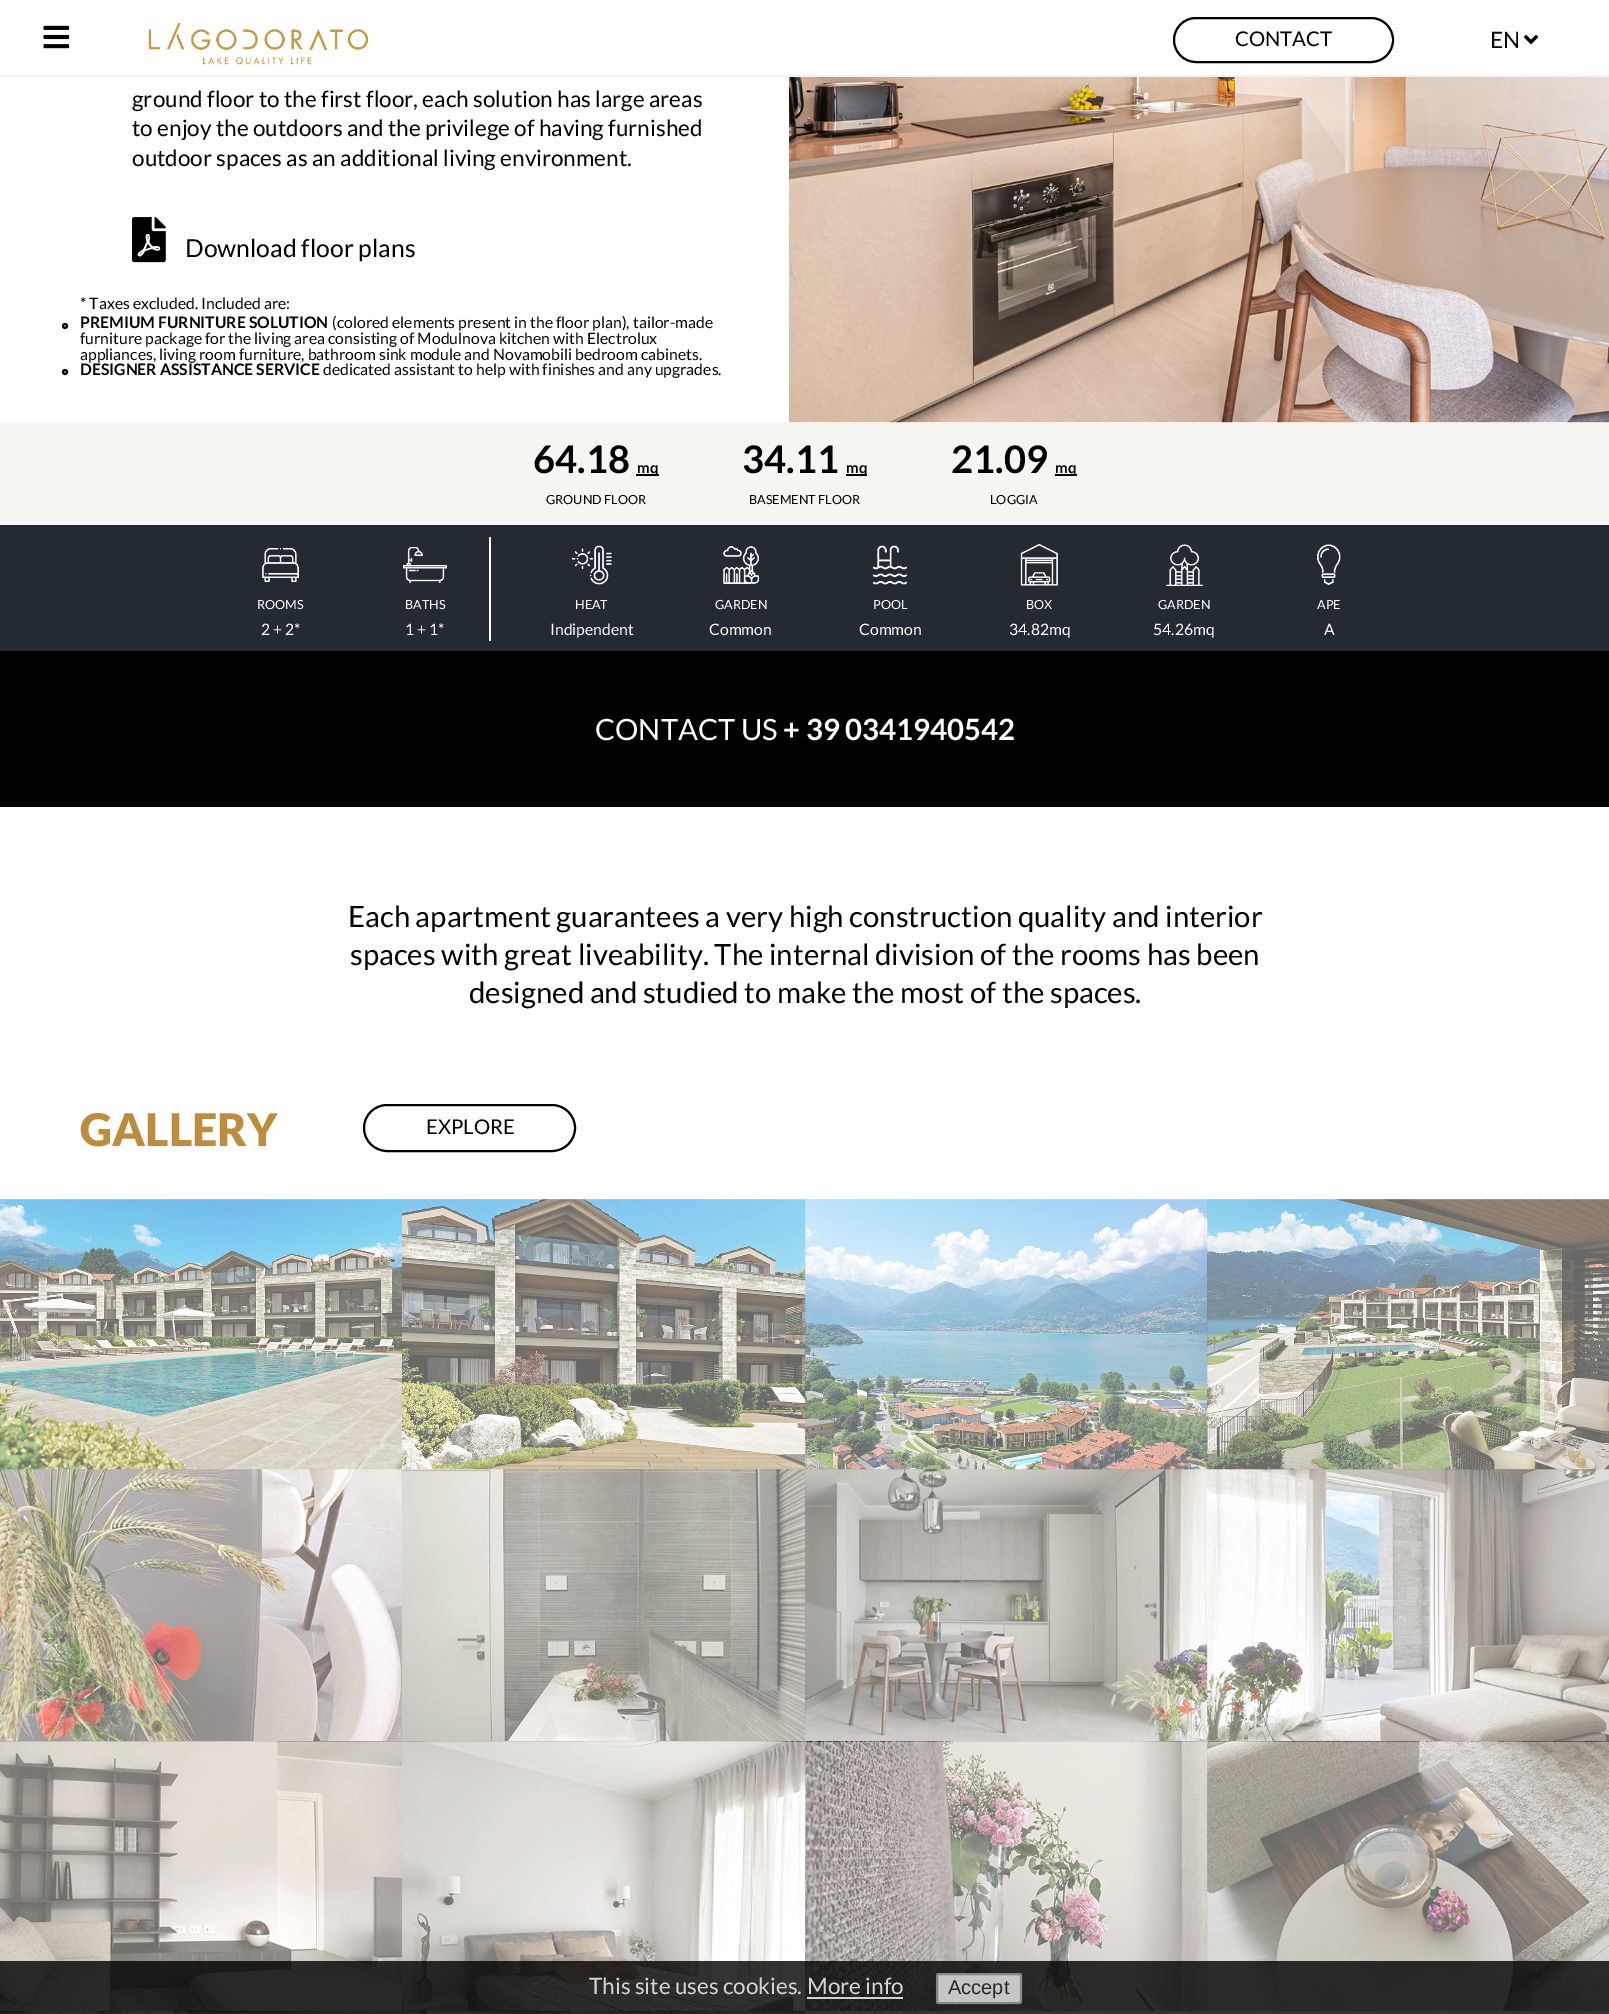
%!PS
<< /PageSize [1609 2014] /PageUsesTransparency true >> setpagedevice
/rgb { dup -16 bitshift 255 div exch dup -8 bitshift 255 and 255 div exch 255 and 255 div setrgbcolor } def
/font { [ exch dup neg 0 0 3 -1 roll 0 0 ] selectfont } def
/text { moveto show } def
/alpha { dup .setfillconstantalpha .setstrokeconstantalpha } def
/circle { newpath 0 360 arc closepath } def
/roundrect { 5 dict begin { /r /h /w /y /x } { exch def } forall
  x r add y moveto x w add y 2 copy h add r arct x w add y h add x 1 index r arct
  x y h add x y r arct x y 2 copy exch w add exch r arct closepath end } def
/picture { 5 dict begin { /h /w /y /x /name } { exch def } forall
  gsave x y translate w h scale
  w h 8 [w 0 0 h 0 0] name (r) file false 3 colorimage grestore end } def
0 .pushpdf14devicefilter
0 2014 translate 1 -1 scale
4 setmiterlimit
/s1 { /Lato-Regular 20.25 font 16#000000 rgb } def
/s2 { /Lato-Regular 22.5 font 16#000000 rgb } def
/s3 { /Lato-Regular 24.75 font 16#000000 rgb } def
/s4 { /Lato-Regular 15.75 font 16#000000 rgb } def
/s5 { /Lato-Bold 15.75 font 16#000000 rgb } def
/s6 { /Lato-Bold 38 font 16#000000 rgb } def
/s7 { /Lato-Bold 15 font 16#000000 rgb } def
/s8 { /Lato-Regular 12.6 font 16#000000 rgb } def
/s9 { /Lato-Regular 12.6 font 16#FFFFFF rgb } def
/s10 { /Lato-Regular 15.75 font 16#FFFFFF rgb } def
/s11 { /Lato-Regular 29.3 font 16#FFFFFF rgb } def
/s12 { /Lato-Bold 29.3 font 16#FFFFFF rgb } def
/s13 { /Lato-Regular 29.3 font 16#000000 rgb } def
/s14 { /Lato-Black 45 font 16#BC8D3C rgb } def
/s15 { /Lato-Regular 22.5 font 16#D5D5D5 rgb } def
/s16 { /LiberationSans-Regular 20 font 16#282828 rgb } def
16#FFFFFF rgb
0 0 1609 2014 rectfill
16#F4F3F3 rgb
0 75 1609 2 rectfill
(pic1.raw) 43 25 27 24 picture
(pic2.raw) 148 23 220 42 picture
16#000000 rgb
2 setlinewidth
1174 18 219 44 22 roundrect stroke
s1
(CONTACT) 1235 46 text
s2
(EN) 1490 48 text
(pic3.raw) 1524 35 14 9 picture
(ground floor to the first floor, each solution has large areas) 132 107 text
(to enjoy the outdoors and the privilege of having furnished) 132 136 text
(outdoor spaces as an additional living environment.) 132 166 text
(pic4.raw) 132 217 34 46 picture
s3
(Download floor plans) 185 257 text
s4
(* Taxes excluded. Included are:) 80 309 text
65 326 2 circle stroke
s5
(PREMIUM FURNITURE SOLUTION) 80 328 text
s4
(\(colored elements present in the floor plan\), tailor-made) 332 328 text
(furniture package for the living area consisting of Modulnova kitchen with Electrolux) 80 344 text
(appliances, living room furniture, bathroom sink module and Novamobili bedroom cabinets.) 80 360 text
65 372 2 circle stroke
s5
(DESIGNER ASSISTANCE SERVICE) 80 375 text
s4
(dedicated assistant to help with finishes and any upgrades.) 323 375 text
(pic5.raw) 789 77 820 346 picture
16#F6F5F1 rgb
0 423 1609 102 rectfill
s6
(64.18) 533 473 text
636 474 23 2 rectfill
s7
(mq) 637 473 text
s8
(GROUND FLOOR) 546 504 text
s6
(34.11) 742 473 text
846 474 21 2 rectfill
s7
(mq) 846 473 text
s8
(BASEMENT FLOOR) 749 504 text
s6
(21.09) 951 473 text
1055 474 22 2 rectfill
s7
(mq) 1055 473 text
s8
(LOGGIA) 990 504 text
16#232A32 rgb
0 525 1609 126 rectfill
(pic6.raw) 262 548 37 34 picture
s9
(ROOMS) 257 609 text
s10
(2 + 2*) 261 635 text
489 537 2 104 rectfill
(pic7.raw) 403 547 44 37 picture
s9
(BATHS) 405 609 text
s10
(1 + 1*) 405 635 text
(pic8.raw) 572 545 40 40 picture
s9
(HEAT) 575 609 text
s10
(Indipendent) 550 635 text
(pic9.raw) 723 546 37 38 picture
s9
(GARDEN) 715 609 text
s10
(Common) 709 635 text
(pic10.raw) 872 545 36 40 picture
s9
(POOL) 873 609 text
s10
(Common) 859 635 text
(pic11.raw) 1020 544 38 42 picture
s9
(BOX) 1026 609 text
s10
(34.82mq) 1009 635 text
(pic12.raw) 1166 544 37 42 picture
s9
(GARDEN) 1158 609 text
s10
(54.26mq) 1153 635 text
(pic13.raw) 1317 544 24 41 picture
s9
(APE) 1317 609 text
s10
(A) 1324 635 text
16#000000 rgb
0 651 1609 156 rectfill
s11
(CONTACT US) 595 740 text
s12
(+ 39 0341940542) 783 740 text
s13
(Each apartment guarantees a very high construction quality and interior) 348 927 text
(spaces with great liveability. The internal division of the rooms has been) 350 965 text
(designed and studied to make the most of the spaces.) 469 1003 text
s14
(GALLERY) 80 1146 text
16#000000 rgb
364 1105 211 46 23 roundrect stroke
s1
(EXPLORE) 426 1134 text
(pic14.raw) 0 1199 402 271 picture
(pic15.raw) 402 1199 404 271 picture
(pic16.raw) 805 1199 403 271 picture
(pic17.raw) 1207 1199 402 271 picture
(pic18.raw) 0 1469 402 272 picture
(pic19.raw) 402 1469 404 272 picture
(pic20.raw) 805 1469 403 272 picture
(pic21.raw) 1207 1469 402 272 picture
(pic22.raw) 0 1741 402 270 picture
(pic23.raw) 402 1741 404 270 picture
(pic24.raw) 805 1741 403 270 picture
(pic25.raw) 1207 1741 402 270 picture
(pic26.raw) 0 2011 402 3 picture
0.4 alpha
16#FFFFFF rgb
0 2012 402 2 rectfill
1 alpha
(pic27.raw) 402 2011 404 3 picture
0.4 alpha
402 2012 404 2 rectfill
0.8 alpha
16#000000 rgb
0 1961 1609 53 rectfill
1 alpha
s15
(This site uses cookies.) 589 1994 text
(More info) 807 1994 text
0.8 alpha
16#FFFFFF rgb
807 1997 96 2 rectfill
16#EFEFEF rgb
936 1973 86 31 3 roundrect fill
16#767676 rgb
937 1974 84 29 2 roundrect stroke
1 alpha
s16
(Accept) 948 1994 text
.poppdf14devicefilter showpage
